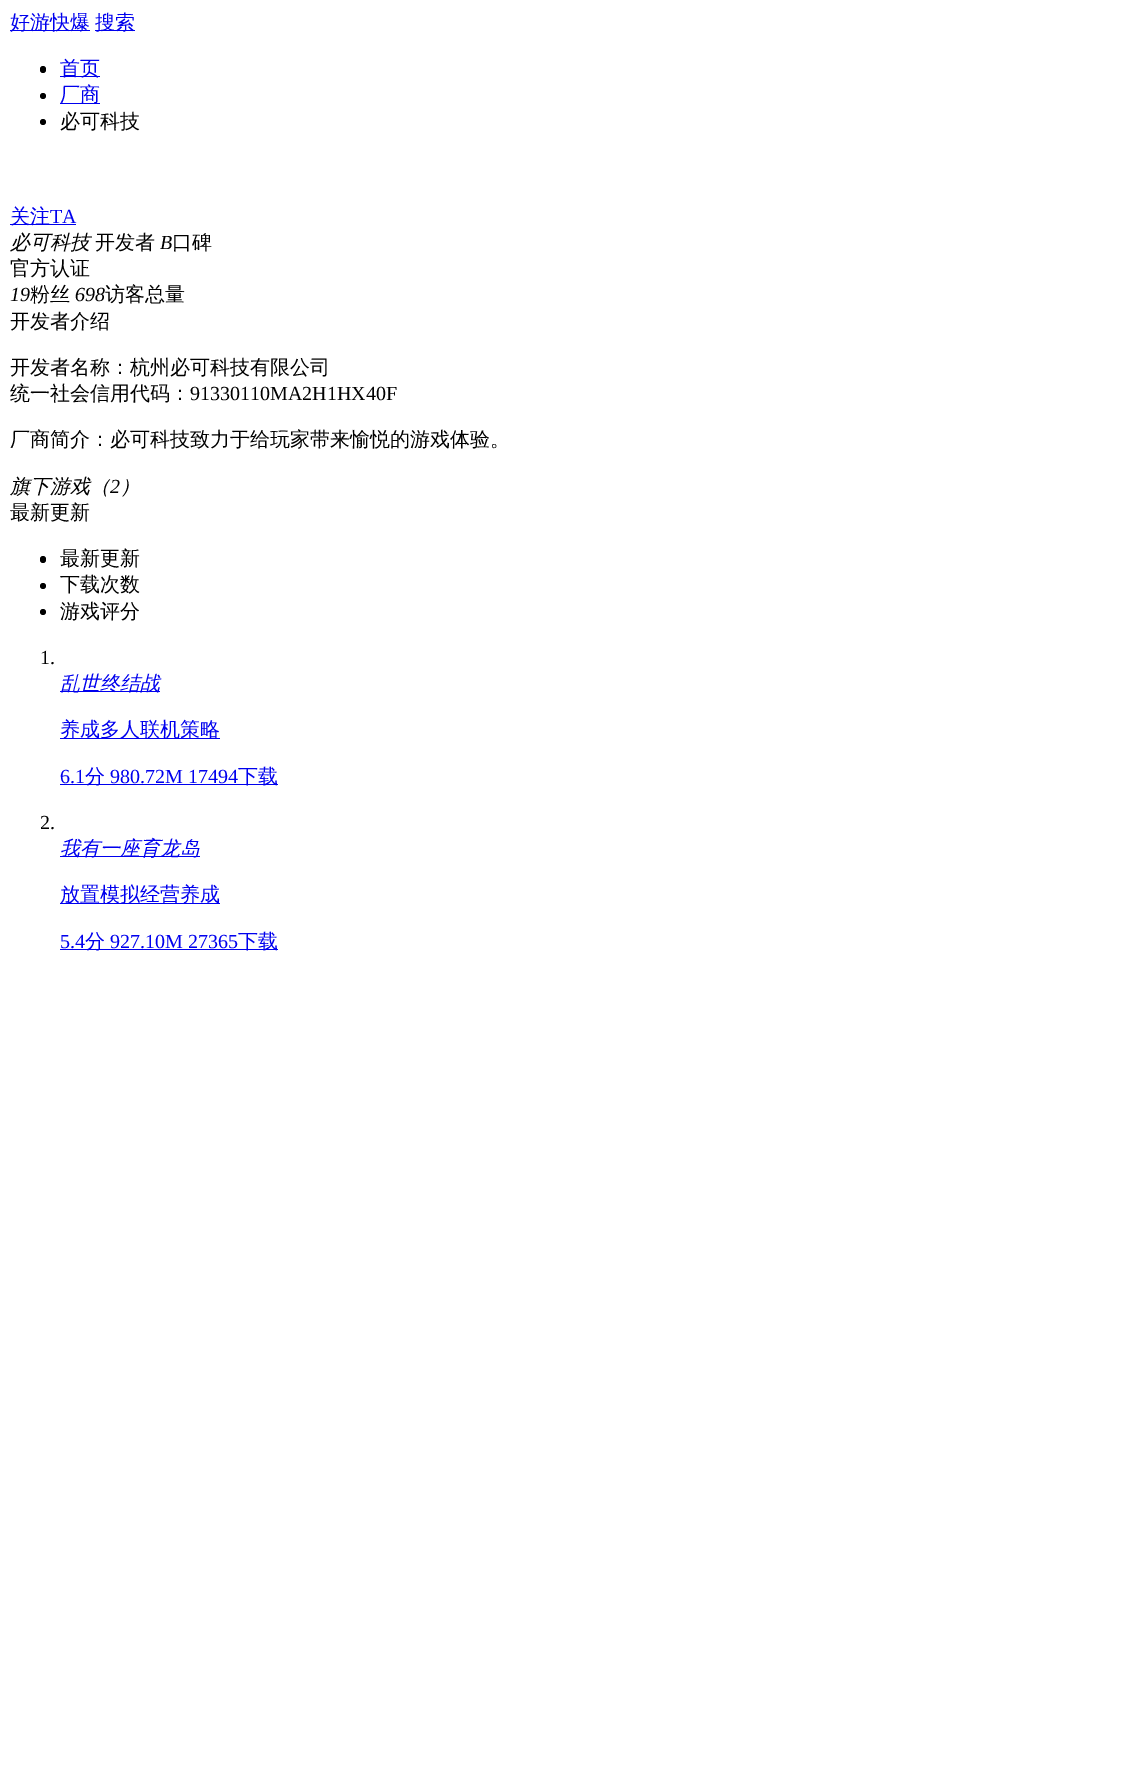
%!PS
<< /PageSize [1138 1770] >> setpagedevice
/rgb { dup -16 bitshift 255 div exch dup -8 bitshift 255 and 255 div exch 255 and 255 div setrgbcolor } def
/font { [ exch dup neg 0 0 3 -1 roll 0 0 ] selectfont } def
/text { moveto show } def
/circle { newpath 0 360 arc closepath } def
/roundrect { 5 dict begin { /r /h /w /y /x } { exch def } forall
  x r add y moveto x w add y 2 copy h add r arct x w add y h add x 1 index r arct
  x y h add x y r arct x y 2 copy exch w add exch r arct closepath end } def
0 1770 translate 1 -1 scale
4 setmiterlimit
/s1 { /WenQuanYiZenHei-Medium 20 font 16#0000EE rgb } def
/s2 { /WenQuanYiZenHei-Medium 20 font 16#000000 rgb } def
/s3 { /LiberationSerif-Regular 20 font 16#0000EE rgb } def
/s4 { /WenQuanYiZenHei-MediumItalic 20 font 16#000000 rgb } def
/s5 { /LiberationSerif-Italic 20 font 16#000000 rgb } def
/s6 { /LiberationSerif-Regular 20 font 16#000000 rgb } def
/s7 { /WenQuanYiZenHei-MediumItalic 20 font 16#0000EE rgb } def
16#FFFFFF rgb
0 0 1138 1770 rectfill
16#0000EE rgb
10 30 80 1 rectfill
s1
(好游快爆) 10 29 text
95 30 40 1 rectfill
(搜索) 95 29 text
16#000000 rgb
40 66 6 7 3 roundrect fill
16#0000EE rgb
60 76 40 1 rectfill
(首页) 60 75 text
16#000000 rgb
43 96 3 circle fill
16#0000EE rgb
60 103 40 1 rectfill
(厂商) 60 101 text
16#000000 rgb
43 122 3 circle fill
(必可科技) 60 128 text
16#0000EE rgb
10 224 66 1 rectfill
(关注) 10 223 text
s3
(TA) 50 223 text
s4
(必可科技) 10 249 text
s2
(开发者) 95 249 text
s5
(B) 160 249 text
s2
(口碑) 172 249 text
(官方认证) 10 275 text
s5
(19) 10 301 text
s2
(粉丝) 30 301 text
s5
(698) 75 301 text
s2
(访客总量) 105 301 text
(开发者介绍) 10 328 text
(开发者名称：杭州必可科技有限公司) 10 374 text
(统一社会信用代码：) 10 400 text
s6
(91330110MA2H1HX40F) 190 400 text
s2
(厂商简介：必可科技致力于给玩家带来愉悦的游戏体验。) 10 446 text
s4
(旗下游戏（) 10 493 text
s5
(2) 110 493 text
s4
(）) 120 493 text
s2
(最新更新) 10 519 text
40 556 6 7 3 roundrect fill
(最新更新) 60 565 text
43 586 3 circle fill
(下载次数) 60 591 text
43 612 3 circle fill
(游戏评分) 60 618 text
s6
(1.) 40 664 text
16#0000EE rgb
60 691 100 1 rectfill
s7
(乱世终结战) 60 690 text
60 738 160 1 rectfill
s1
(养成多人联机策略) 60 736 text
s3
(6.1) 60 783 text
60 784 218 1 rectfill
s1
(分) 85 783 text
s3
(980.72M 17494) 110 783 text
s1
(下载) 238 783 text
s6
(2.) 40 829 text
16#0000EE rgb
60 856 140 1 rectfill
s7
(我有一座育龙岛) 60 855 text
60 903 160 1 rectfill
s1
(放置模拟经营养成) 60 901 text
s3
(5.4) 60 948 text
60 949 218 1 rectfill
s1
(分) 85 948 text
s3
(927.10M 27365) 110 948 text
s1
(下载) 238 948 text
showpage
